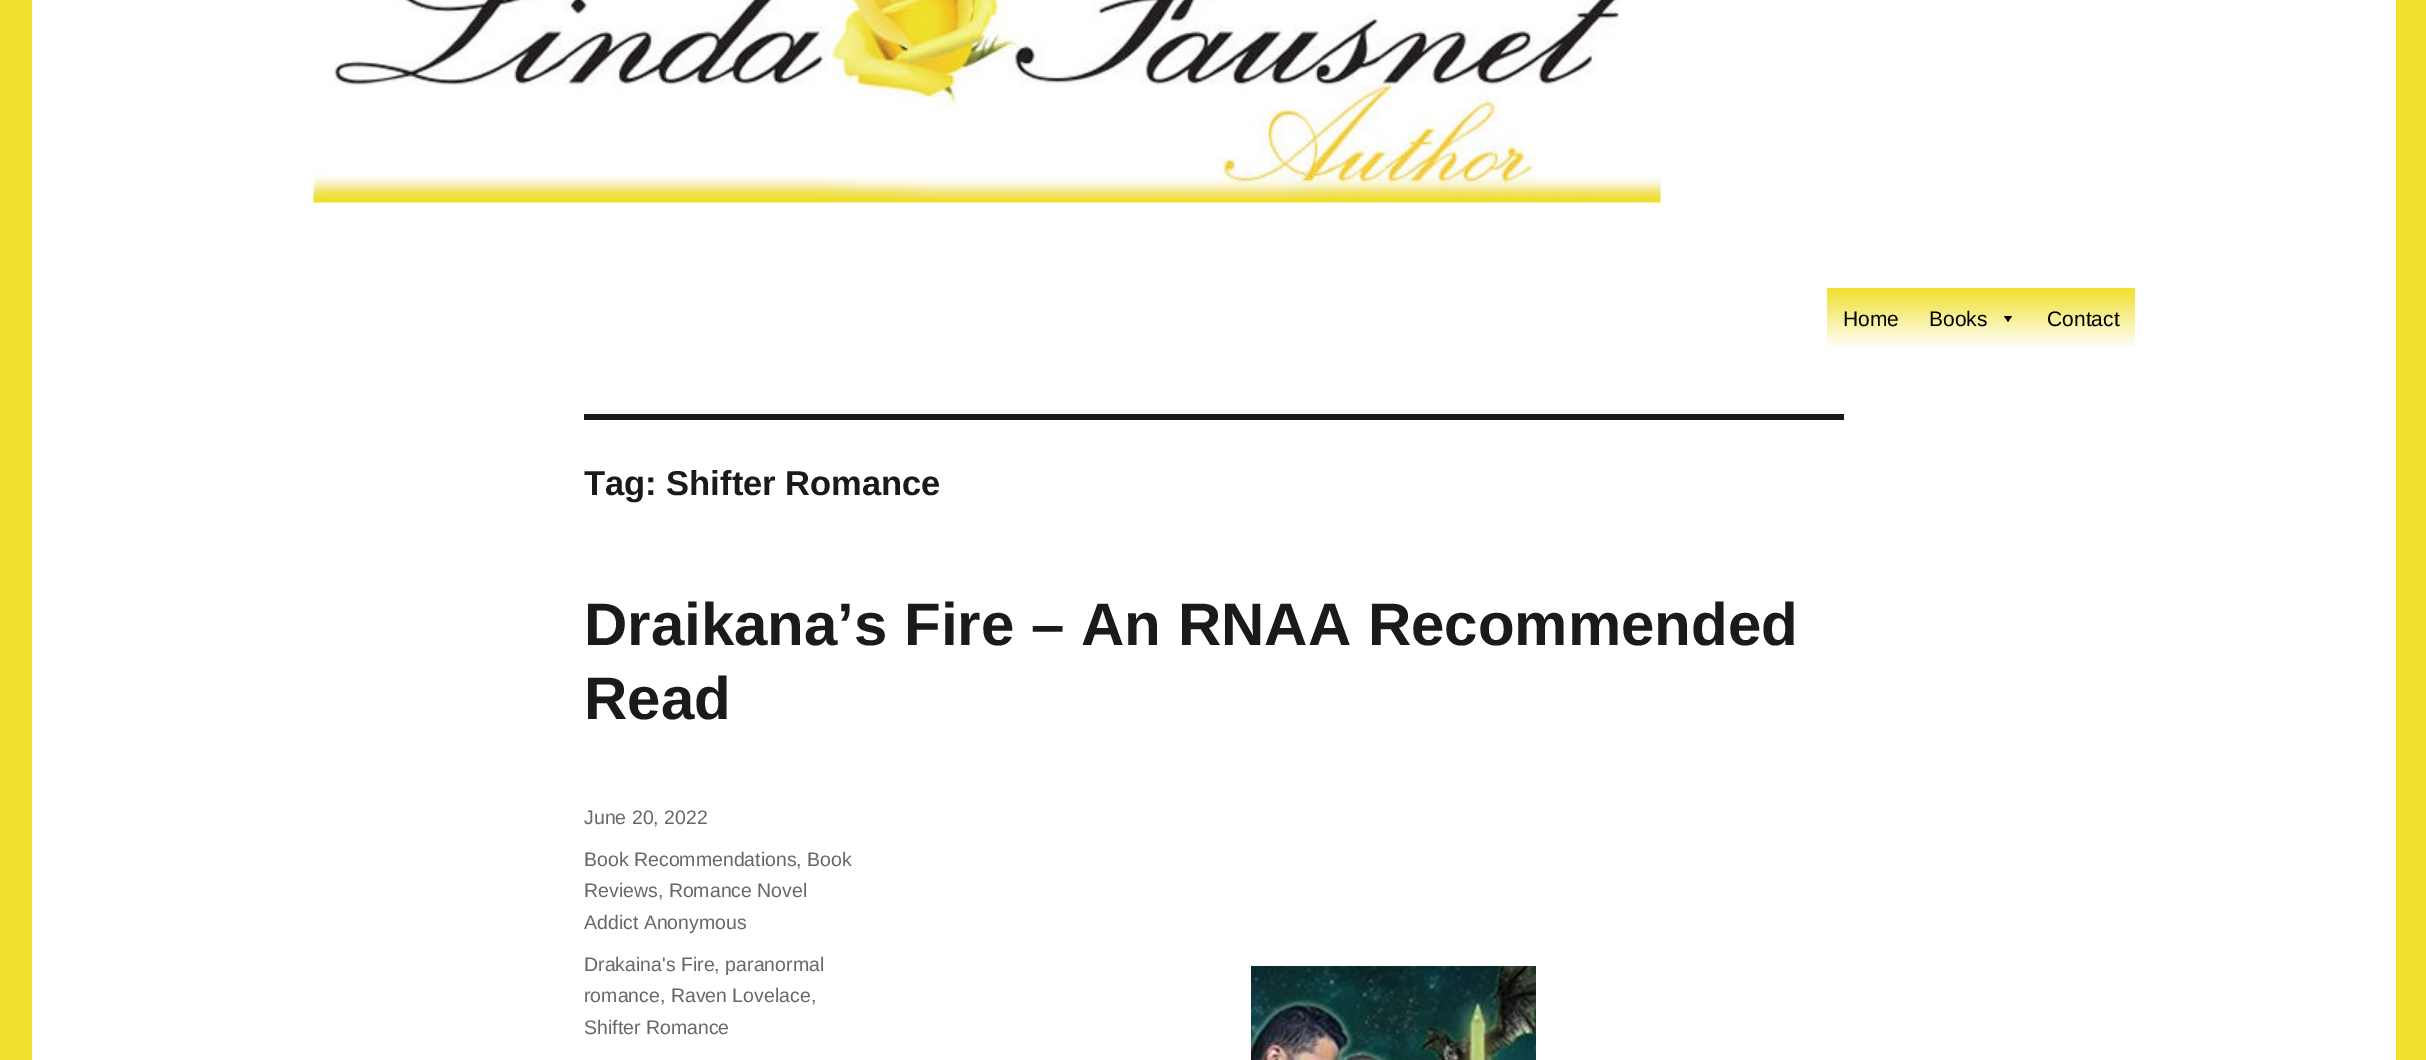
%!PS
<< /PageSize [2426 1060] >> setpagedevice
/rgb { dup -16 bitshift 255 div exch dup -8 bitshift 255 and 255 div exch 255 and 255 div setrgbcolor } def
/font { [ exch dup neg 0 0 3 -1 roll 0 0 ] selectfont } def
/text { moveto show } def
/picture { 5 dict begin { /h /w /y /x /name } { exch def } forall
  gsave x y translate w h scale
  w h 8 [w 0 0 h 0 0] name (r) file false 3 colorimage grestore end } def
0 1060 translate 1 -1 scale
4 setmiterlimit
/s1 { /LiberationSans-Regular 21 font 16#000000 rgb } def
/s2 { /LiberationSans-Bold 34.5 font 16#1A1A1A rgb } def
/s3 { /LiberationSans-Bold 60 font 16#1A1A1A rgb } def
/s4 { /LiberationSans-Regular 19.5 font 16#686868 rgb } def
16#F0E02B rgb
0 0 2426 1060 rectfill
16#FFFFFF rgb
32 0 2364 1060 rectfill
(pic1.raw) 313 0 1350 204 picture
gsave 1827 288 moveto 2135 288 lineto 2135 347 lineto 1827 347 lineto closepath clip newpath
<< /ShadingType 2 /ColorSpace /DeviceRGB /Coords [1981 288 1981 348] /Extend [true true] /Function << /FunctionType 2 /Domain [0 1] /C0 [0.941 0.878 0.169] /C1 [1 1 1] /N 1 >> >> shfill grestore
s1
(Home) 1843 326 text
(Books) 1929 326 text
2012 316 moveto 2008 322 lineto 2004 316 lineto closepath fill
(Contact) 2047 326 text
16#1A1A1A rgb
584 414 1260 6 rectfill
s2
(Tag: Shifter Romance) 584 495 text
s3
(Draikana’s Fire – An RNAA Recommended) 584 645 text
(Read) 584 719 text
s4
(June 20, 2022) 584 824 text
(Book Recommendations, Book) 584 866 text
(Reviews, Romance Novel) 584 897 text
(Addict Anonymous) 584 929 text
(Drakaina's Fire, paranormal) 584 971 text
(romance, Raven Lovelace,) 584 1002 text
(Shifter Romance) 584 1034 text
(pic2.raw) 1251 966 285 94 picture
showpage
